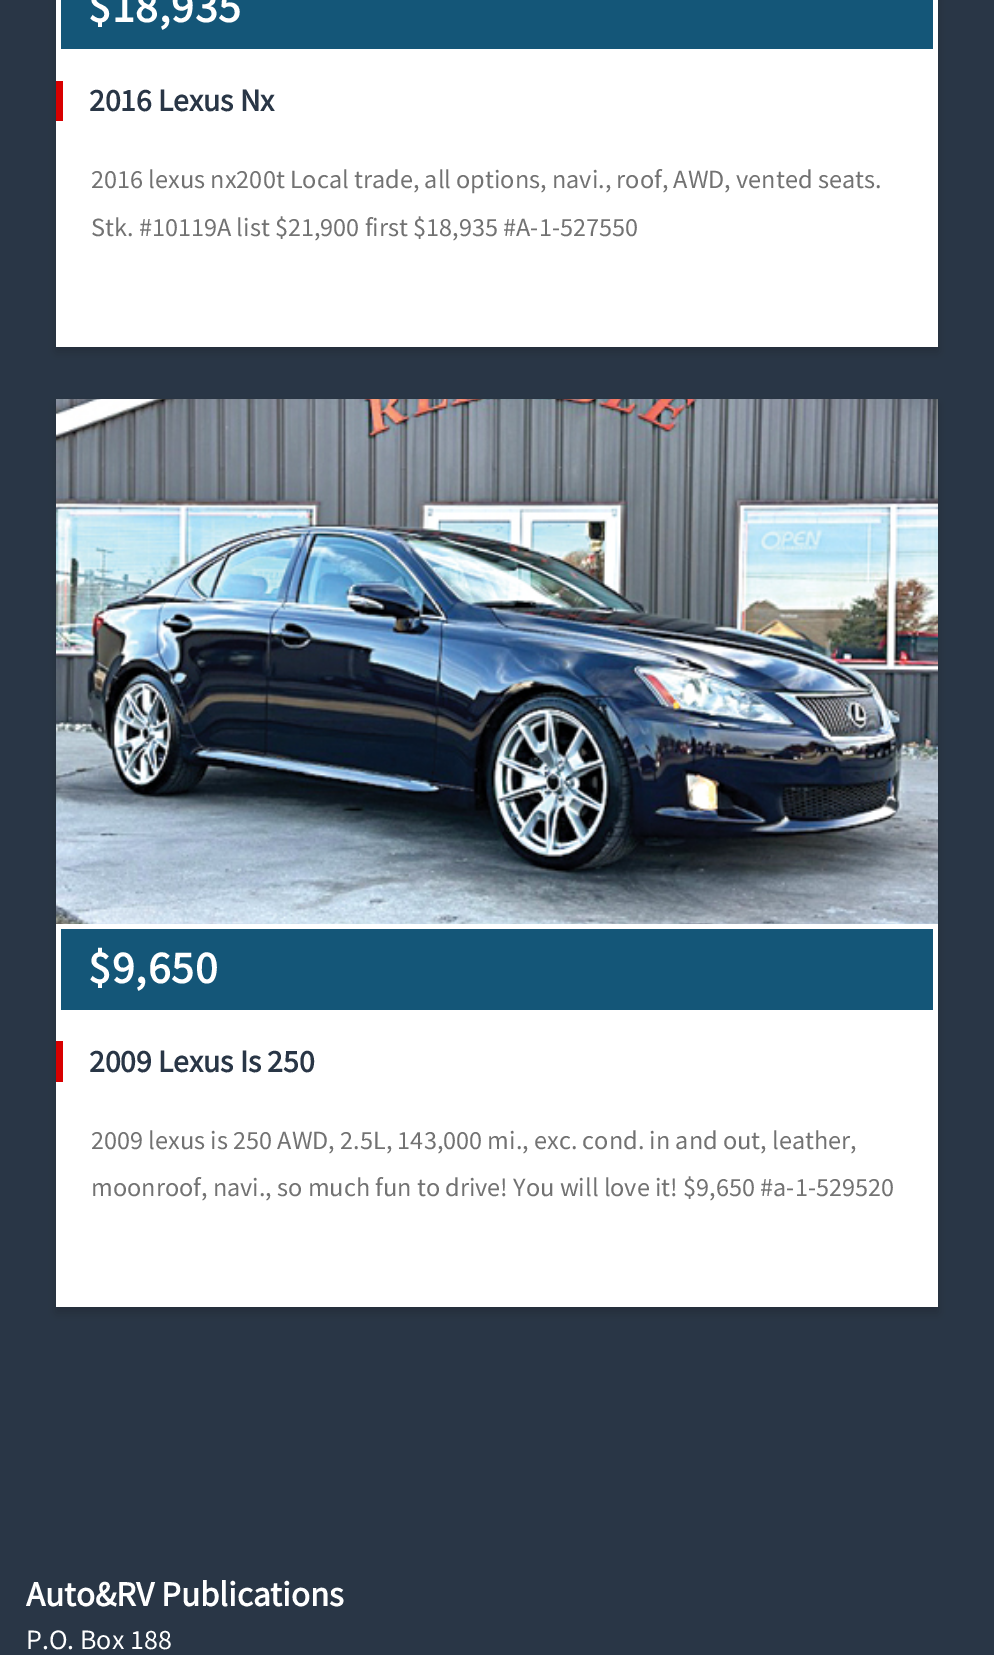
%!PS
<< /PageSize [994 1655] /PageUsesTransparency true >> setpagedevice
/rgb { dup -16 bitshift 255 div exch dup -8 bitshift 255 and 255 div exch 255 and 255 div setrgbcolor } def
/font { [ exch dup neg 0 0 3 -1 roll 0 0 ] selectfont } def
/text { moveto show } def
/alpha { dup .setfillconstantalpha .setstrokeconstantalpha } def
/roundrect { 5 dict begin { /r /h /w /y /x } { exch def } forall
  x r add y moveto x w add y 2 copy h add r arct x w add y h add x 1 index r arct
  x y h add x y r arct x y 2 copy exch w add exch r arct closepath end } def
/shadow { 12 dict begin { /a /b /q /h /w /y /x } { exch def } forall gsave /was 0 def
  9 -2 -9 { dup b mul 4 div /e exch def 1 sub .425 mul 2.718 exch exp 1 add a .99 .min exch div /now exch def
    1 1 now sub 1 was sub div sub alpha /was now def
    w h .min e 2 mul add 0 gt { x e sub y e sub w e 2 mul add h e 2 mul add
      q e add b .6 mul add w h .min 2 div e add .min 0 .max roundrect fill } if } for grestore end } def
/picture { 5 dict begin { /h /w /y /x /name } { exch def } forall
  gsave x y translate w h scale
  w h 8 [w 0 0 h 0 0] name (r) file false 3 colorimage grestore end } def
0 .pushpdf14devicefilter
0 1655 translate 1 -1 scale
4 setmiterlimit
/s1 { /SourceSansPro-Bold 31.5 font 16#293646 rgb } def
/s2 { /SourceSansPro-Regular 26.25 font 16#727272 rgb } def
/s3 { /SourceSansPro-Bold 35 font 16#FFFFFF rgb } def
/s4 { /SourceSansPro-Regular 28 font 16#FFFFFF rgb } def
16#293646 rgb
0 0 994 1655 rectfill
16#000000 rgb
56 -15 882 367 0 5 0.16 shadow
16#FFFFFF rgb
56 54 882 293 rectfill
16#145678 rgb
61 0 872 49 rectfill
16#FFFFFF rgb
933 0 5 54 rectfill
56 49 882 5 rectfill
56 0 5 54 rectfill
/SourceSansPro-Bold 45.5 font
88 22 moveto 1 0 ($18,935) ashow
16#D80000 rgb
56 81 7 40 rectfill
s1
(2016 Lexus Nx) 89 111 text
s2
(2016 lexus nx200t Local trade, all options, navi., roof, AWD, vented seats.) 91 188 text
(Stk. #10119A list $21,900 first $18,935 #A-1-527550) 91 236 text
16#000000 rgb
56 404 882 909 0 5 0.16 shadow
16#FFFFFF rgb
56 924 882 383 rectfill
(pic1.raw) 56 399 882 525 picture
16#145678 rgb
61 929 872 81 rectfill
/SourceSansPro-Bold 45.5 font
16#FFFFFF rgb
88 983 moveto 1 0 ($9,650) ashow
16#D80000 rgb
56 1041 7 41 rectfill
s1
(2009 Lexus Is 250) 89 1072 text
s2
(2009 lexus is 250 AWD, 2.5L, 143,000 mi., exc. cond. in and out, leather,) 91 1149 text
(moonroof, navi., so much fun to drive! You will love it! $9,650 #a-1-529520) 91 1196 text
s3
(Auto&RV Publications) 26 1606 text
s4
(P.O. Box 188) 26 1649 text
.poppdf14devicefilter showpage
